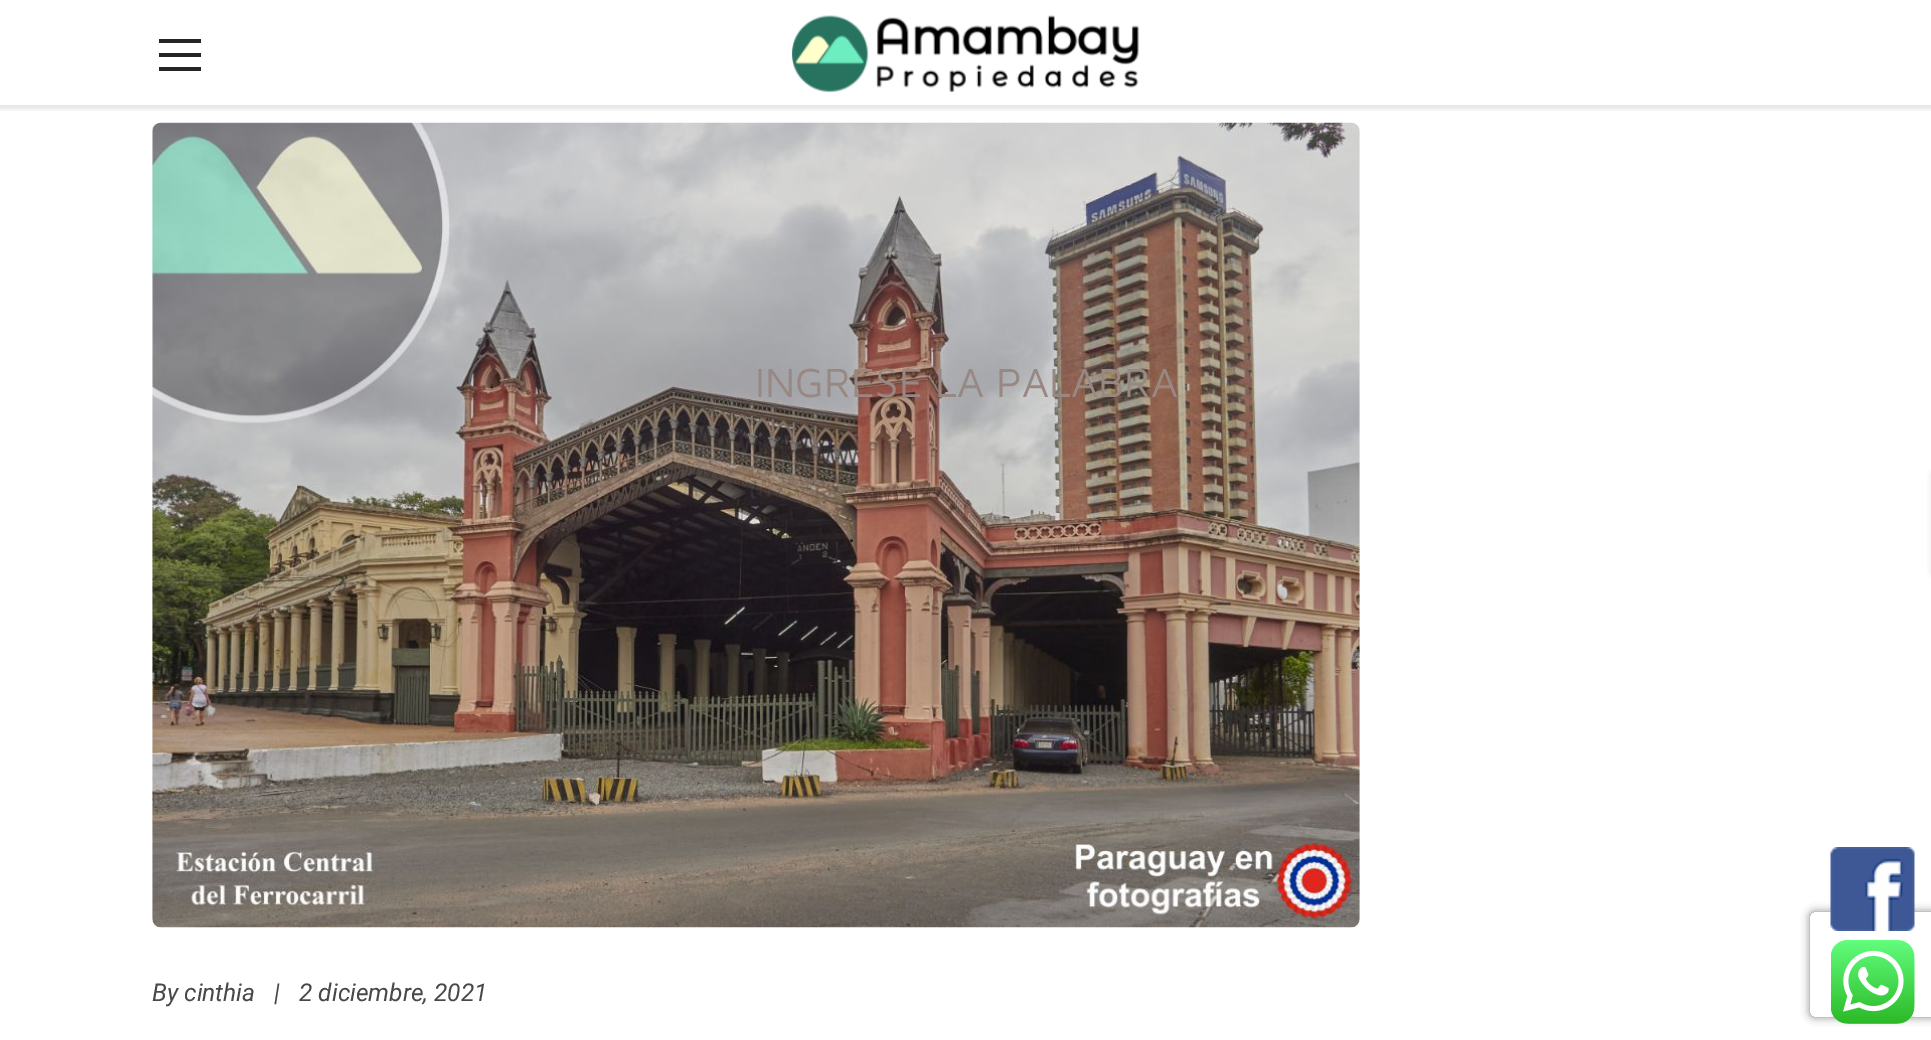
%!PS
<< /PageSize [1931 1040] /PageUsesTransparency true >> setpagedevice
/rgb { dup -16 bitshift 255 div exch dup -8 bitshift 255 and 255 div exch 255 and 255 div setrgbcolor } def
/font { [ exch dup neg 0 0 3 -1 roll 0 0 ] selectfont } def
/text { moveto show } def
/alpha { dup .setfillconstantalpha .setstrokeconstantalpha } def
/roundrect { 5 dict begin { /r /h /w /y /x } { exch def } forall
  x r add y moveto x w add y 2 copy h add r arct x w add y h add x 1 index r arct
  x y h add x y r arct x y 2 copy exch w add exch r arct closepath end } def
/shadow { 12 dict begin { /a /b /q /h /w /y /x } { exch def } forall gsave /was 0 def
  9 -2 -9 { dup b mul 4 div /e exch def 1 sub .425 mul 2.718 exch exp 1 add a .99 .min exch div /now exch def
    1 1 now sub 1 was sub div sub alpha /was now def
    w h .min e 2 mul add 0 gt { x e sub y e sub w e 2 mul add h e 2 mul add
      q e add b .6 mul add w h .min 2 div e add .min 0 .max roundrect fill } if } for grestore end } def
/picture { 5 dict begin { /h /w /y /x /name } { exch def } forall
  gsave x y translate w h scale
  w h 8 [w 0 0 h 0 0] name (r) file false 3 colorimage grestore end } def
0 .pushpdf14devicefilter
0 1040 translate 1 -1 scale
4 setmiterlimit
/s1 { /MavenPro-Regular 42 font 16#988883 rgb } def
/s2 { /Roboto-Regular 28 font 16#261F23 rgb } def
/s3 { /Roboto-Italic 24.5 font 16#484848 rgb } def
16#FFFFFF rgb
0 0 1931 1040 rectfill
(pic4.raw) 152 122 1208 806 picture
s1
(INGRESE LA PALABRA) 755 397 text
s2
(.) 848 542 text
16#777777 rgb
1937 476 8 95 0 4.5 1 shadow
gsave
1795 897 moveto 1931 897 lineto 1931 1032 lineto 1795 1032 lineto closepath 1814 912 moveto 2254 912 lineto 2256 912 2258 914 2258 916 curveto 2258 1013 lineto 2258 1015 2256 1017 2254 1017 curveto 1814 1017 lineto 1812 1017 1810 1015 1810 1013 curveto 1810 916 lineto 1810 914 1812 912 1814 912 curveto closepath eoclip newpath
16#808080 rgb
1810 912 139 105 4 4.5 1 shadow
grestore
(pic1.raw) 1830 847 85 84 picture
(pic2.raw) 1831 940 84 84 picture
gsave
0 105 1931 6 rectclip
16#000000 rgb
-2 -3 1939 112 0 2.5 0.1 shadow
grestore
16#252525 rgb
159 39 42 4 rectfill
159 53 42 4 rectfill
159 67 42 4 rectfill
(pic3.raw) 791 15 349 77 picture
s3
(By cinthia) 152 1001 text
(|) 274 1001 text
(2 diciembre, 2021) 299 1001 text
.poppdf14devicefilter showpage
